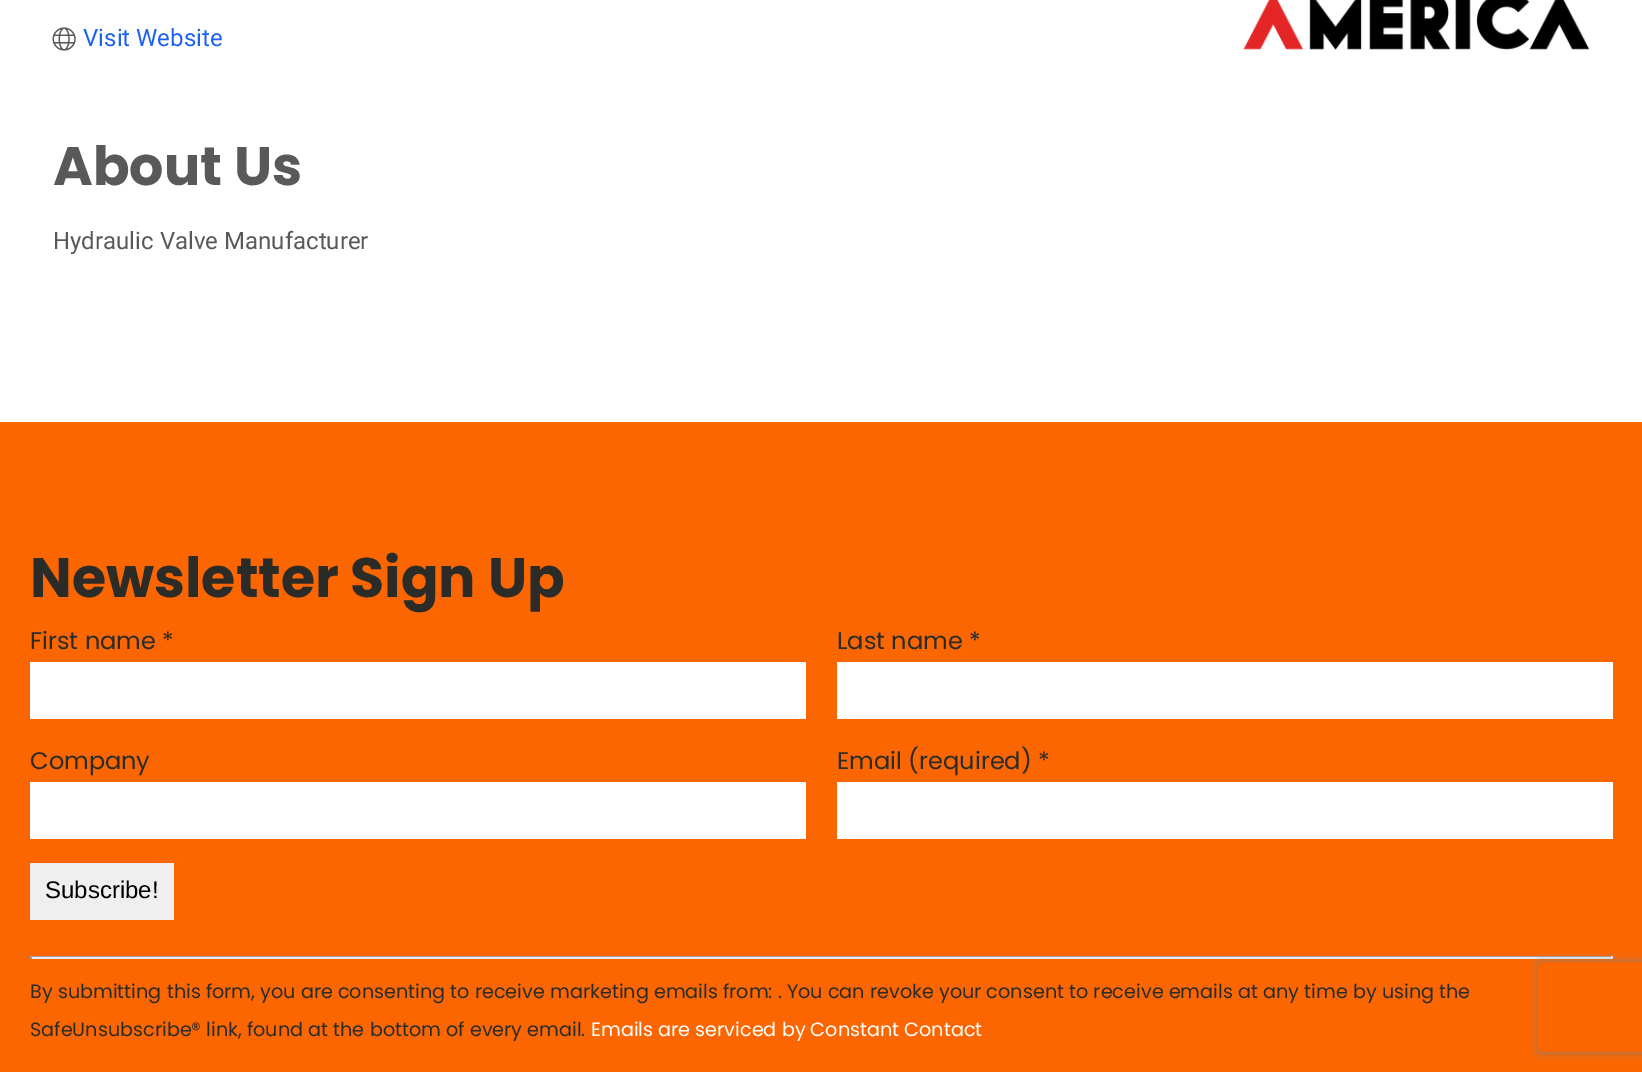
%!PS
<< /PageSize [1642 1072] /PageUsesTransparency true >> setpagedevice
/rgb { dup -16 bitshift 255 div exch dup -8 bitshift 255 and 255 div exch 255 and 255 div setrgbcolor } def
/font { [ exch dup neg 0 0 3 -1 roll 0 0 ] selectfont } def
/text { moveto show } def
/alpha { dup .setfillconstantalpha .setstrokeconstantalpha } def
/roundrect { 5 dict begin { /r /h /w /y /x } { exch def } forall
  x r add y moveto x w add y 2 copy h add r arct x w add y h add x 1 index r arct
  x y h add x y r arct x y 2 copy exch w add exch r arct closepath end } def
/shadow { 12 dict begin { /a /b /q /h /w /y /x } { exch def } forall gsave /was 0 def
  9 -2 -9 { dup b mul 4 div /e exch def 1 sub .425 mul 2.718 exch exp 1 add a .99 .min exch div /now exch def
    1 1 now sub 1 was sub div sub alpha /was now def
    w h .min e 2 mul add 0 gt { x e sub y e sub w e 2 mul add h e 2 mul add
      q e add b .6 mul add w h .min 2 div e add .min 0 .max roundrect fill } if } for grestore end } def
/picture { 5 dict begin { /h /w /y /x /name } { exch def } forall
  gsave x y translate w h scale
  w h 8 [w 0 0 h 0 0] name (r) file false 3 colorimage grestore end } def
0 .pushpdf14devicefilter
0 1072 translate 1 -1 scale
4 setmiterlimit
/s1 { /Roboto-Regular 24 font 16#1D62F0 rgb } def
/s2 { /Poppins-Bold 54 font 16#595959 rgb } def
/s3 { /Roboto-Regular 24 font 16#595959 rgb } def
/s4 { /Poppins-Bold 55.5 font 16#2B2C28 rgb } def
/s5 { /Poppins-Regular 24 font 16#2B2C28 rgb } def
/s6 { /LiberationSans-Regular 24 font 16#000000 rgb } def
/s7 { /Poppins-Regular 19.2 font 16#2B2C28 rgb } def
/s8 { /Poppins-Regular 19.2 font 16#FFFFFF rgb } def
16#FFFFFF rgb
0 0 1642 1072 rectfill
(pic1.raw) 52 27 24 24 picture
s1
(Visit Website) 83 46 text
(pic2.raw) 1243 0 347 50 picture
s2
(About Us) 53 185 text
s3
(Hydraulic Valve Manufacturer) 53 249 text
16#FB6601 rgb
0 422 1642 650 rectfill
s4
(Newsletter Sign Up) 30 597 text
s5
(First name *) 30 649 text
16#FFFFFF rgb
30 662 776 57 rectfill
s5
(Last name *) 837 649 text
16#FFFFFF rgb
837 662 776 57 rectfill
s5
(Company) 30 769 text
16#FFFFFF rgb
30 782 776 57 rectfill
s5
(Email \(required\) *) 837 769 text
16#FFFFFF rgb
837 782 776 57 rectfill
16#EFEFEF rgb
30 863 144 57 rectfill
s6
(Subscribe!) 45 898 text
16#9F9F9F rgb
30 956 1583 1 rectfill
16#EEEEEE rgb
1611 956 2 3 rectfill
30 957 1583 2 rectfill
16#9F9F9F rgb
30 956 2 3 rectfill
s7
(By submitting this form, you are consenting to receive marketing emails from: . You can revoke your consent to receive emails at any time by using the) 30 998 text
(SafeUnsubscribe® link, found at the bottom of every email.) 30 1036 text
s8
(Emails are serviced by Constant Contact) 591 1036 text
gsave
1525 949 moveto 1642 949 lineto 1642 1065 lineto 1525 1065 lineto closepath 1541 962 moveto 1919 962 lineto 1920.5 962 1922 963.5 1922 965 curveto 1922 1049 lineto 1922 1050.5 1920.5 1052 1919 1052 curveto 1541 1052 lineto 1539.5 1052 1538 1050.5 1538 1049 curveto 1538 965 lineto 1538 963.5 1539.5 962 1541 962 curveto closepath eoclip newpath
16#808080 rgb
1538 962 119 90 3 4 1 shadow
grestore
.poppdf14devicefilter showpage
